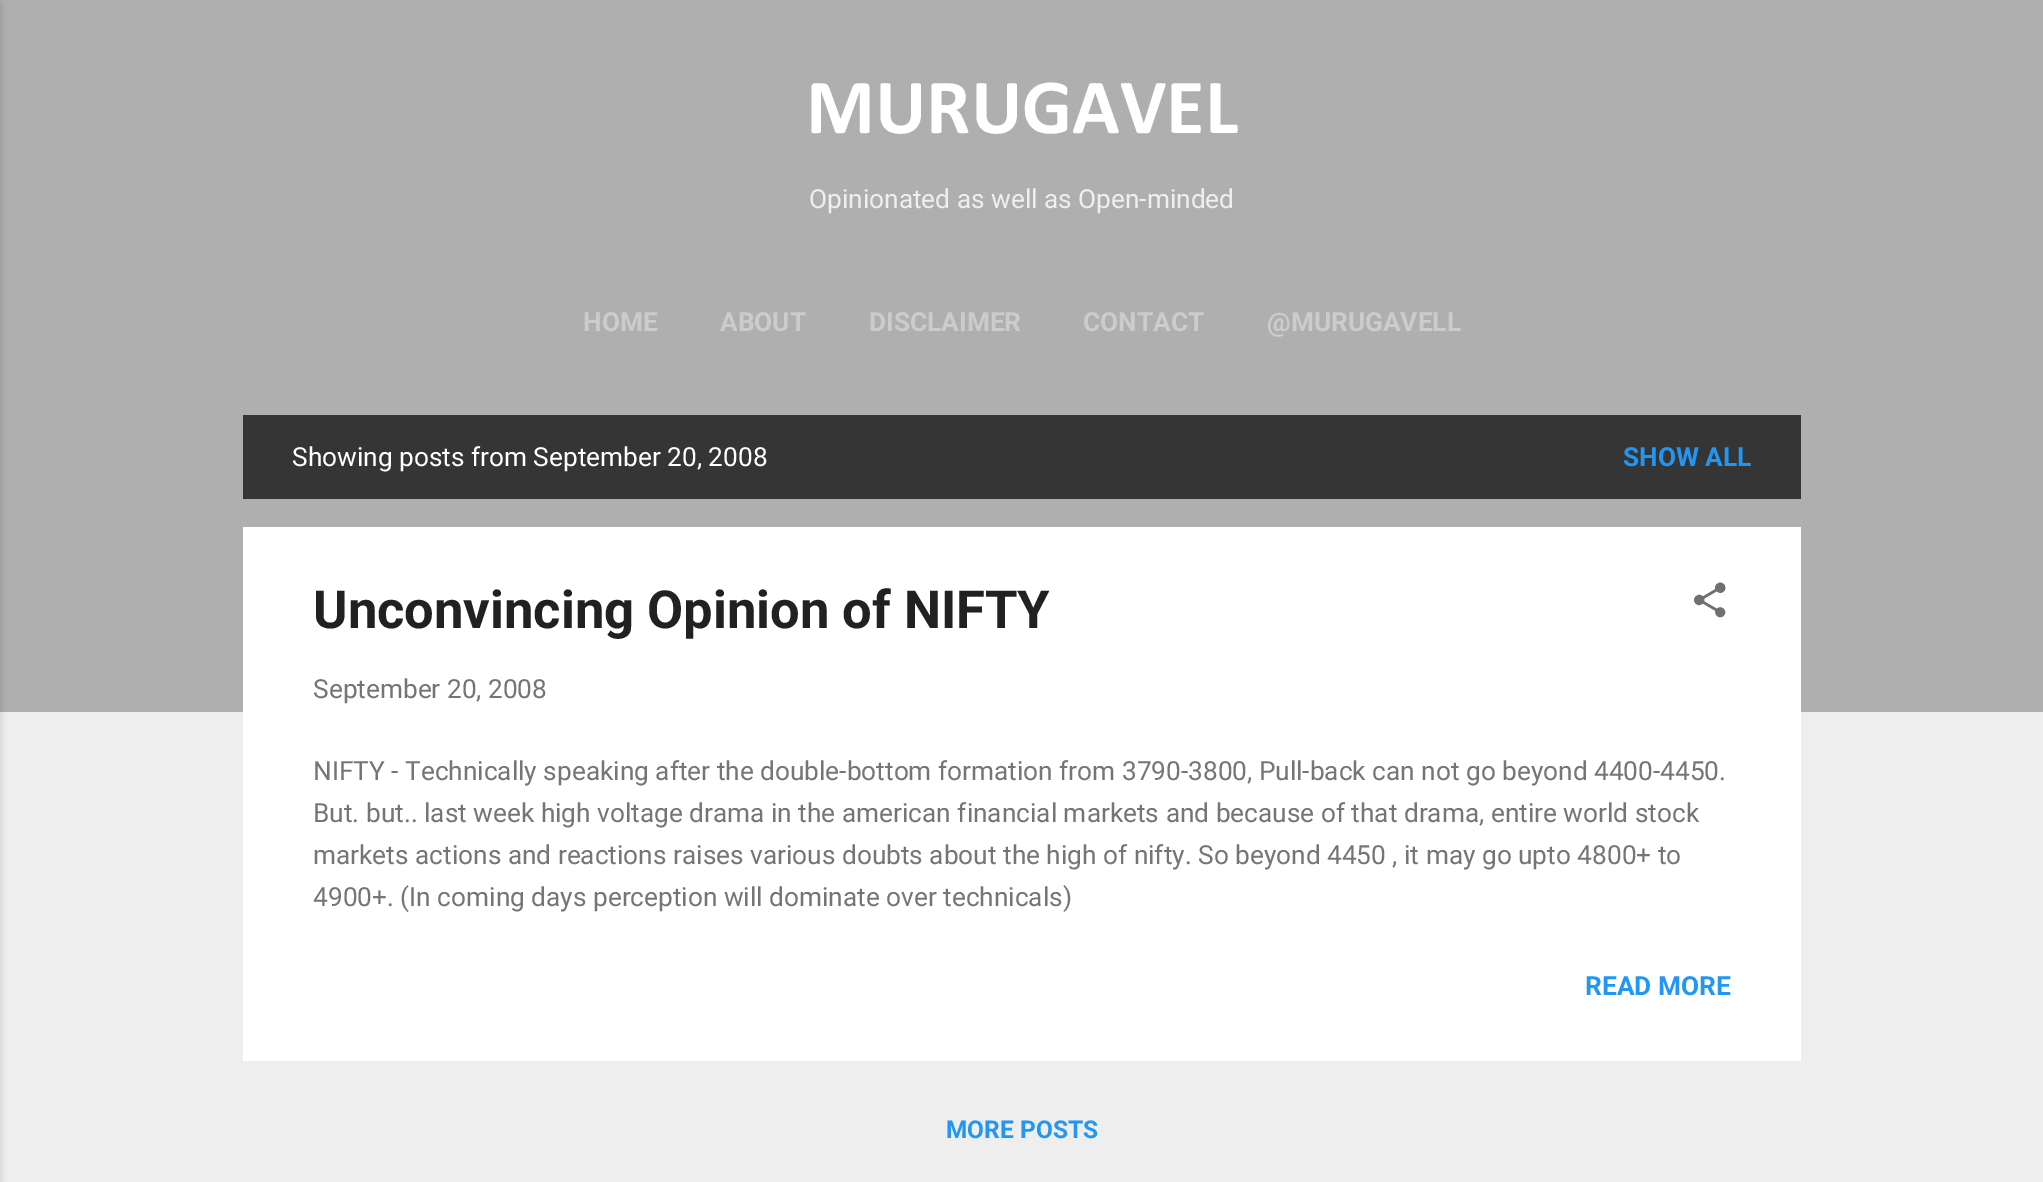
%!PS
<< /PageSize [2043 1182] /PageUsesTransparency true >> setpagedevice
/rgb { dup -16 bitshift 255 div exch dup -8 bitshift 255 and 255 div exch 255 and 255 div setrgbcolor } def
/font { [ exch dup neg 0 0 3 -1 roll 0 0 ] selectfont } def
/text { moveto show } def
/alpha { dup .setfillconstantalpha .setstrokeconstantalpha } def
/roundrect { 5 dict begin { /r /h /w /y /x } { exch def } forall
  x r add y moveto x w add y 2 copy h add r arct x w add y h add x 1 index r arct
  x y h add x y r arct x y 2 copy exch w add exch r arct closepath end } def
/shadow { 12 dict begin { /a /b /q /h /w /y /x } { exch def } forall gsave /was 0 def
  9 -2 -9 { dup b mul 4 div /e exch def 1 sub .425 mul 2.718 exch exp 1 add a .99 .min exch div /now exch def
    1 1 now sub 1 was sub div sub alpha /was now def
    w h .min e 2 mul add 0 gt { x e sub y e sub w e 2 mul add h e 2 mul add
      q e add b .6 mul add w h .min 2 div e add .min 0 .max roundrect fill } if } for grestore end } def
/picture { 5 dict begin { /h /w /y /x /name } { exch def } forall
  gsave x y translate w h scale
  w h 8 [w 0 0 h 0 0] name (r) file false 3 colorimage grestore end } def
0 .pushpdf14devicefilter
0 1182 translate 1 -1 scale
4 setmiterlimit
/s1 { /Calibri-Bold 78.75 font 16#FFFFFF rgb } def
/s2 { /Roboto-Regular 26.25 font 16#EFEFEF rgb } def
/s3 { /Roboto-Bold 26.25 font 16#CCCCCC rgb } def
/s4 { /Roboto-Regular 26.25 font 16#FFFFFF rgb } def
/s5 { /Roboto-Bold 26.25 font 16#2196F3 rgb } def
/s6 { /Roboto-Bold 52.5 font 16#212121 rgb } def
/s7 { /Roboto-Regular 26.25 font 16#757575 rgb } def
/s8 { /Roboto-Bold 24.5 font 16#2196F3 rgb } def
16#EEEEEE rgb
0 0 2043 1182 rectfill
16#AFAFAF rgb
0 0 2043 712 rectfill
16#000000 rgb
-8 2 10 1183 0 2.5 0.1 shadow
s1
(MURUGAVEL) 806 133 text
s2
(Opinionated as well as Open-minded) 809 208 text
s3
(HOME) 583 331 text
(ABOUT) 720 331 text
(DISCLAIMER) 869 331 text
(CONTACT) 1083 331 text
(@MURUGAVELL) 1267 331 text
16#353535 rgb
243 415 1558 84 rectfill
s4
(Showing posts from September 20, 2008) 292 466 text
s5
(SHOW ALL) 1623 466 text
16#FFFFFF rgb
243 527 1558 534 rectfill
s6
(Unconvincing Opinion of NIFTY) 313 628 text
(pic1.raw) 1694 582 32 36 picture
s7
(September 20, 2008) 313 698 text
(NIFTY - Technically speaking after the double-bottom formation from 3790-3800, Pull-back can not go beyond 4400-4450.) 313 780 text
(But. but.. last week high voltage drama in the american financial markets and because of that drama, entire world stock) 313 822 text
(markets actions and reactions raises various doubts about the high of nifty. So beyond 4450 , it may go upto 4800+ to) 313 864 text
(4900+. \(In coming days perception will dominate over technicals\)) 313 906 text
s5
(READ MORE) 1585 995 text
s8
(MORE POSTS) 946 1138 text
.poppdf14devicefilter showpage
